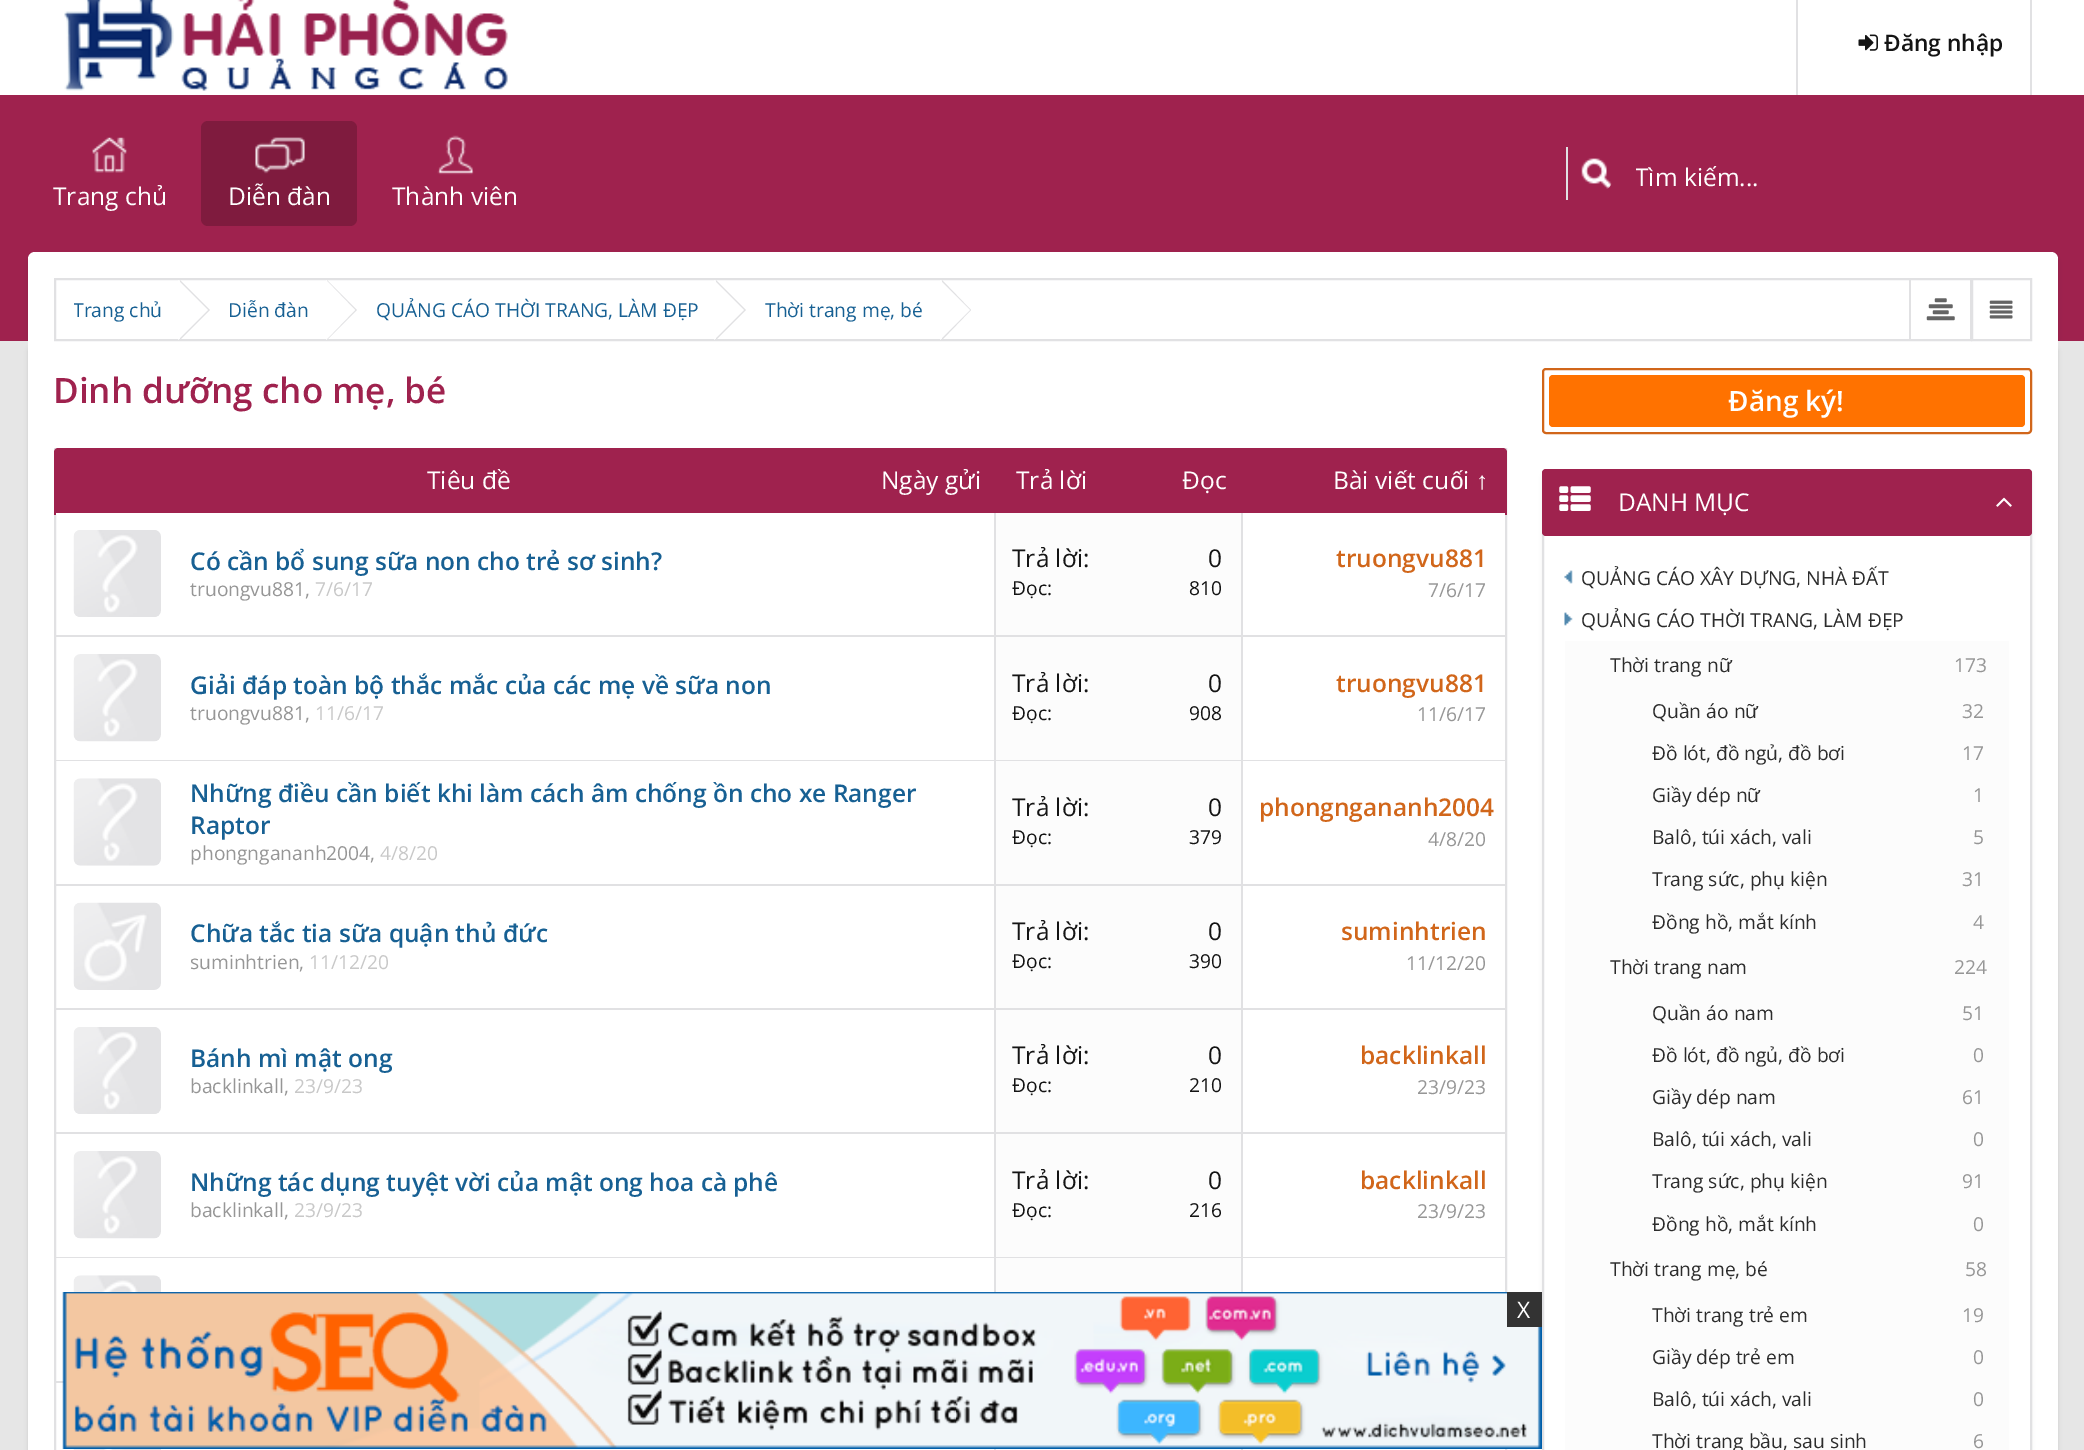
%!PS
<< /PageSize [2084 1450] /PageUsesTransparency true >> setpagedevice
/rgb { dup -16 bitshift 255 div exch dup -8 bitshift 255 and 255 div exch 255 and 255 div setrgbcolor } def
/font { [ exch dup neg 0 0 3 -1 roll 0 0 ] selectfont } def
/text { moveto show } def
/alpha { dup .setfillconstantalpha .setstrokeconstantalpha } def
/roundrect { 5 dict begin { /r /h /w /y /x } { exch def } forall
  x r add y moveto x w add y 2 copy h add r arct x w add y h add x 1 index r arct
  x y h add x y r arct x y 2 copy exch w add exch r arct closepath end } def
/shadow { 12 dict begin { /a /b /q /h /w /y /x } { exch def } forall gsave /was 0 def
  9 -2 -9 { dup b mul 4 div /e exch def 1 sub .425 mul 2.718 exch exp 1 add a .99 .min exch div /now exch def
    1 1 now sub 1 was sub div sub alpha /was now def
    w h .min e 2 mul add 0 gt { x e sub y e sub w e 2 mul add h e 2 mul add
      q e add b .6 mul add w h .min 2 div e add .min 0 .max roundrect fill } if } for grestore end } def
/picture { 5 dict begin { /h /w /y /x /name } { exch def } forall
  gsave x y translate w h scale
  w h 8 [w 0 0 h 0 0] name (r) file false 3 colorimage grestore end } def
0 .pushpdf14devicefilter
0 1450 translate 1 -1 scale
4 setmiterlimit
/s1 { /OpenSans-SemiBold 22.75 font 16#141414 rgb } def
/s2 { /OpenSans-Regular 24.5 font 16#FFFFFF rgb } def
/s3 { /OpenSans-Regular 19.25 font 16#176093 rgb } def
/s4 { /OpenSans-SemiBold 35 font 16#9F224E rgb } def
/s5 { /LiberationSans-Regular 24.5 font 16#FFFFFF rgb } def
/s6 { /OpenSans-SemiBold 24.5 font 16#176093 rgb } def
/s7 { /OpenSans-Regular 19.25 font 16#969696 rgb } def
/s8 { /OpenSans-Regular 19.25 font 16#C8C8C8 rgb } def
/s9 { /OpenSans-Regular 24.5 font 16#141414 rgb } def
/s10 { /OpenSans-Regular 19.25 font 16#141414 rgb } def
/s11 { /OpenSans-SemiBold 24.5 font 16#D1661A rgb } def
/s12 { /OpenSans-SemiBold 28 font 16#FFFFFF rgb } def
/s13 { /OpenSans-Regular 19.25 font 16#2C2C2C rgb } def
/s14 { /OpenSans-Regular 22.75 font 16#FFFFFF rgb } def
16#E6E6E6 rgb
0 0 2084 1450 rectfill
16#000000 rgb
28 345 2030 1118 7 2 0.1 shadow
16#9F224E rgb
0 252 2084 89 rectfill
16#FFFFFF rgb
28 341 2030 1109 rectfill
gsave
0 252 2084 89 rectclip
16#000000 rgb
28 256 2030 89 7 2 0.1 shadow
grestore
16#9F224E rgb
0 95 2084 157 rectfill
16#FFFFFF rgb
0 0 2084 95 rectfill
(pic1.raw) 64 0 444 91 picture
16#E1E1E3 rgb
2030 0 2 95 rectfill
1796 0 2 95 rectfill
(pic2.raw) 1858 34 20 17 picture
s1
(Đăng nhập) 1884 51 text
16#E1E1E3 rgb
1566 147 2 53 rectfill
(pic3.raw) 1581 158 31 31 picture
gsave
1636 159 406 34 rectclip
s2
(Tìm kiếm...) 1635 186 text
grestore
(pic4.raw) 92 137 35 36 picture
s2
(Trang chủ) 53 205 text
16#7F1B3E rgb
201 121 156 105 7 roundrect fill
(pic5.raw) 255 137 50 37 picture
s2
(Diễn đàn) 228 205 text
(pic6.raw) 437 135 37 40 picture
(Thành viên) 392 205 text
35 252 moveto 2051 252 lineto 2055 252 2058 255 2058 259 curveto 2058 341 lineto 28 341 lineto 28 259 lineto 28 255 31 252 35 252 curveto closepath fill
16#E1E1E3 rgb
2 setlinewidth
55 279 1916 61 rectstroke
gsave
74 280 89 60 rectclip
s3
(Trang chủ) 73 317 text
grestore
180 340 moveto 180 280 lineto 210 310 lineto closepath fill
16#FFFFFF rgb
178 340 moveto 178 280 lineto 208 310 lineto closepath fill
s3
(Diễn đàn) 228 317 text
16#E1E1E3 rgb
327 340 moveto 327 280 lineto 357 310 lineto closepath fill
16#FFFFFF rgb
326 340 moveto 326 280 lineto 355 310 lineto closepath fill
s3
(QUẢNG CÁO THỜI TRANG, LÀM ĐẸP) 376 317 text
16#E1E1E3 rgb
716 340 moveto 716 280 lineto 746 310 lineto closepath fill
16#FFFFFF rgb
714 340 moveto 714 280 lineto 744 310 lineto closepath fill
s3
(Thời trang mẹ, bé) 765 317 text
16#E1E1E3 rgb
942 340 moveto 942 280 lineto 971 310 lineto closepath fill
16#FFFFFF rgb
940 340 moveto 940 280 lineto 970 310 lineto closepath fill
16#E1E1E3 rgb
1909 280 2 60 rectfill
(pic7.raw) 1926 298 29 23 picture
1972 279 59 61 rectstroke
(pic8.raw) 1989 300 24 19 picture
s4
(Dinh dưỡng cho mẹ, bé) 53 403 text
16#E1E1E3 rgb
55 449 1451 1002 rectstroke
16#9F224E rgb
58 448 moveto 1503 448 lineto 1505 448 1507 450 1507 452 curveto 1507 515 lineto 54 515 lineto 54 452 lineto 54 450 56 448 58 448 curveto closepath fill
s2
(Tiêu đề) 427 489 text
(Ngày gửi) 881 489 text
(Trả lời) 1016 489 text
(Đọc) 1182 489 text
(Bài vi) 1333 489 text
s5
(ế) 1394 489 text
s2
(t cu) 1407 489 text
s5
(ố) 1450 489 text
s2
(i) 1463 489 text
s5
(↑) 1476 489 text
56 513 1449 2 rectfill
16#E1E1E3 rgb
56 635 1449 2 rectfill
(pic9.raw) 73 530 88 87 picture
s6
(Có cần bổ sung sữa non cho trẻ sơ sinh?) 190 570 text
s7
(truongvu881,) 190 596 text
s8
(7/6/17) 315 596 text
16#FCFCFC rgb
996 513 245 122 rectfill
16#E1E1E3 rgb
1241 513 2 122 rectfill
994 513 2 122 rectfill
s9
(Trả lời:) 1012 567 text
(0) 1208 567 text
s10
(Đọc:) 1012 595 text
(810) 1189 595 text
s11
(truongvu881) 1336 567 text
s7
(7/6/17) 1428 597 text
16#E1E1E3 rgb
56 760 1449 1 rectfill
(pic10.raw) 73 654 88 88 picture
s6
(Giải đáp toàn bộ thắc mắc của các mẹ về sữa non) 190 694 text
s7
(truongvu881,) 190 720 text
s8
(11/6/17) 315 720 text
16#FCFCFC rgb
996 637 245 123 rectfill
16#E1E1E3 rgb
1241 637 2 123 rectfill
994 637 2 123 rectfill
s9
(Trả lời:) 1012 692 text
(0) 1208 692 text
s10
(Đọc:) 1012 720 text
(908) 1189 720 text
s11
(truongvu881) 1336 692 text
s7
(11/6/17) 1417 721 text
16#E1E1E3 rgb
56 884 1449 2 rectfill
(pic11.raw) 73 778 88 88 picture
s6
(Những điều cần biết khi làm cách âm chống ồn cho xe Ranger) 190 802 text
(Raptor) 190 834 text
s7
(phongngananh2004,) 190 860 text
s8
(4/8/20) 380 860 text
16#FCFCFC rgb
996 761 245 123 rectfill
16#E1E1E3 rgb
1241 761 2 123 rectfill
994 761 2 123 rectfill
s9
(Trả lời:) 1012 816 text
(0) 1208 816 text
s10
(Đọc:) 1012 844 text
(379) 1189 844 text
s11
(phongngananh2004) 1259 816 text
s7
(4/8/20) 1428 846 text
16#E1E1E3 rgb
56 1008 1449 2 rectfill
(pic12.raw) 73 902 88 88 picture
s6
(Chữa tắc tia sữa quận thủ đức) 190 942 text
s7
(suminhtrien,) 190 969 text
s8
(11/12/20) 309 969 text
16#FCFCFC rgb
996 886 245 122 rectfill
16#E1E1E3 rgb
1241 886 2 122 rectfill
994 886 2 122 rectfill
s9
(Trả lời:) 1012 940 text
(0) 1208 940 text
s10
(Đọc:) 1012 968 text
(390) 1189 968 text
s11
(suminhtrien) 1341 940 text
s7
(11/12/20) 1406 970 text
16#E1E1E3 rgb
56 1132 1449 2 rectfill
(pic9.raw) 73 1027 88 87 picture
s6
(Bánh mì mật ong) 190 1067 text
s7
(backlinkall,) 190 1093 text
s8
(23/9/23) 294 1093 text
16#FCFCFC rgb
996 1010 245 122 rectfill
16#E1E1E3 rgb
1241 1010 2 122 rectfill
994 1010 2 122 rectfill
s9
(Trả lời:) 1012 1064 text
(0) 1208 1064 text
s10
(Đọc:) 1012 1092 text
(210) 1189 1092 text
s11
(backlinkall) 1360 1064 text
s7
(23/9/23) 1417 1094 text
16#E1E1E3 rgb
56 1257 1449 1 rectfill
(pic10.raw) 73 1151 88 88 picture
s6
(Những tác dụng tuyệt vời của mật ong hoa cà phê) 190 1191 text
s7
(backlinkall,) 190 1217 text
s8
(23/9/23) 294 1217 text
16#FCFCFC rgb
996 1134 245 123 rectfill
16#E1E1E3 rgb
1241 1134 2 123 rectfill
994 1134 2 123 rectfill
s9
(Trả lời:) 1012 1189 text
(0) 1208 1189 text
s10
(Đọc:) 1012 1217 text
(216) 1189 1217 text
s11
(backlinkall) 1360 1189 text
s7
(23/9/23) 1417 1218 text
16#E1E1E3 rgb
56 1381 8 2 rectfill
(pic13.raw) 73 1275 88 17 picture
16#FCFCFC rgb
996 1258 245 34 rectfill
16#E1E1E3 rgb
1241 1258 2 34 rectfill
994 1258 2 34 rectfill
(pic14.raw) 73 1449 88 1 picture
16#FCFCFC rgb
996 1449 245 1 rectfill
16#E1E1E3 rgb
1241 1449 2 1 rectfill
994 1449 2 1 rectfill
16#D1661A rgb
1543 369 488 64 3 roundrect stroke
16#FF7200 rgb
1549 375 476 52 4 roundrect fill
s12
(Đăng ký!) 1728 411 text
16#000000 rgb
1542 473 490 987 4 2 0.06 shadow
16#FFFFFF rgb
1543 470 488 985 3 roundrect gsave fill grestore
16#E1E1E3 rgb
stroke
16#9F224E rgb
1542 469 490 67 4 roundrect fill
(pic15.raw) 1559 486 32 25 picture
s2
(DANH MỤC) 1618 511 text
(pic16.raw) 1996 497 16 10 picture
(pic17.raw) 1564 570 9 14 picture
s13
(QUẢNG CÁO XÂY DỰNG, NHÀ ĐẤT) 1581 585 text
(pic18.raw) 1564 612 9 14 picture
(QUẢNG CÁO THỜI TRANG, LÀM ĐẸP) 1581 627 text
16#FCFCFC rgb
1565 641 444 809 rectfill
s13
(Thời trang nữ) 1610 672 text
s7
(173) 1954 672 text
s13
(Quần áo nữ) 1652 718 text
s7
(32) 1962 718 text
s13
(Đồ lót, đồ ngủ, đồ bơi) 1652 760 text
s7
(17) 1962 760 text
s13
(Giầy dép nữ) 1652 802 text
s7
(1) 1973 802 text
s13
(Balô, túi xách, vali) 1652 844 text
s7
(5) 1973 844 text
s13
(Trang sức, phụ kiện) 1652 886 text
s7
(31) 1962 886 text
s13
(Đồng hồ, mắt kính) 1652 929 text
s7
(4) 1973 929 text
s13
(Thời trang nam) 1610 974 text
s7
(224) 1954 974 text
s13
(Quần áo nam) 1652 1020 text
s7
(51) 1962 1020 text
s13
(Đồ lót, đồ ngủ, đồ bơi) 1652 1062 text
s7
(0) 1973 1062 text
s13
(Giầy dép nam) 1652 1104 text
s7
(61) 1962 1104 text
s13
(Balô, túi xách, vali) 1652 1146 text
s7
(0) 1973 1146 text
s13
(Trang sức, phụ kiện) 1652 1188 text
s7
(91) 1962 1188 text
s13
(Đồng hồ, mắt kính) 1652 1231 text
s7
(0) 1973 1231 text
s13
(Thời trang mẹ, bé) 1610 1276 text
s7
(58) 1965 1276 text
s13
(Thời trang trẻ em) 1652 1322 text
s7
(19) 1962 1322 text
s13
(Giầy dép trẻ em) 1652 1364 text
s7
(0) 1973 1364 text
s13
(Balô, túi xách, vali) 1652 1406 text
s7
(0) 1973 1406 text
s13
(Thời trang bầu, sau sinh) 1652 1448 text
s7
(6) 1973 1448 text
(pic19.raw) 62 1292 1480 157 picture
16#333333 rgb
1507 1292 35 35 rectfill
s14
(X) 1517 1318 text
.poppdf14devicefilter showpage
